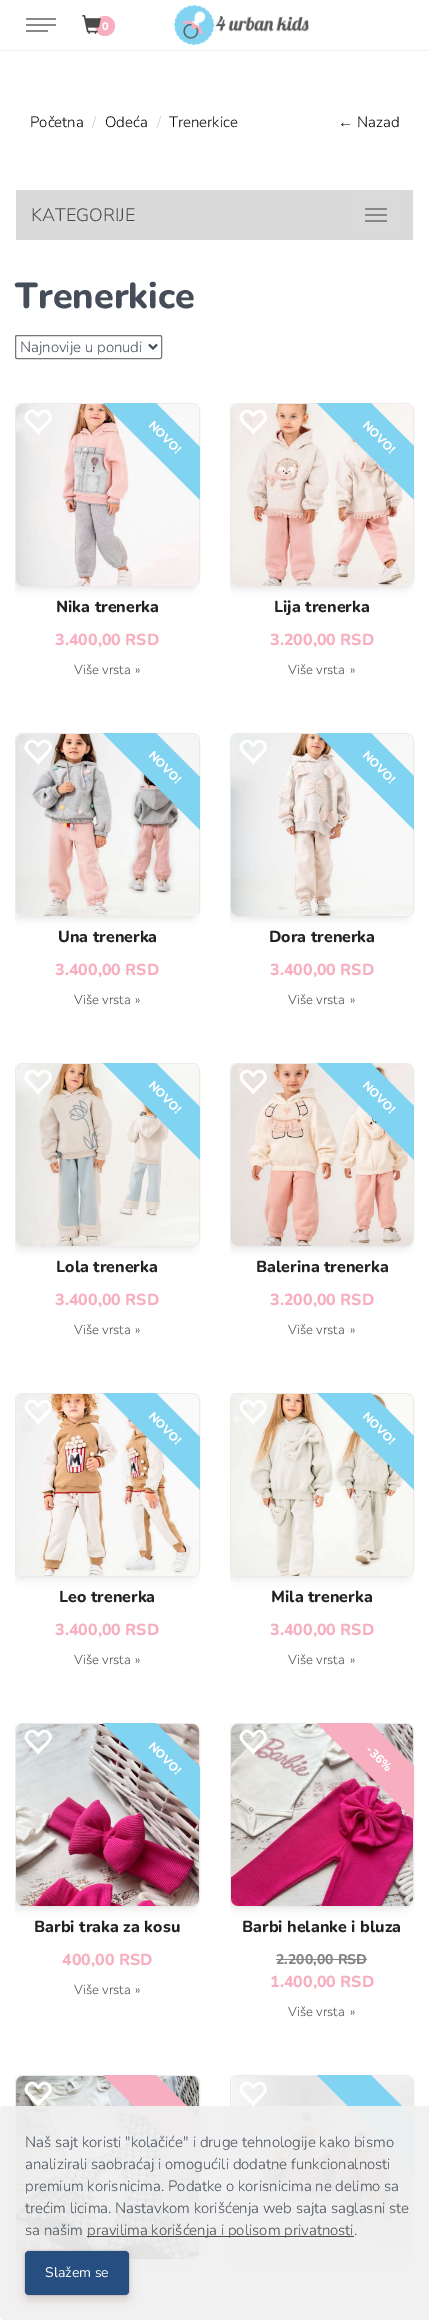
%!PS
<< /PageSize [429 2320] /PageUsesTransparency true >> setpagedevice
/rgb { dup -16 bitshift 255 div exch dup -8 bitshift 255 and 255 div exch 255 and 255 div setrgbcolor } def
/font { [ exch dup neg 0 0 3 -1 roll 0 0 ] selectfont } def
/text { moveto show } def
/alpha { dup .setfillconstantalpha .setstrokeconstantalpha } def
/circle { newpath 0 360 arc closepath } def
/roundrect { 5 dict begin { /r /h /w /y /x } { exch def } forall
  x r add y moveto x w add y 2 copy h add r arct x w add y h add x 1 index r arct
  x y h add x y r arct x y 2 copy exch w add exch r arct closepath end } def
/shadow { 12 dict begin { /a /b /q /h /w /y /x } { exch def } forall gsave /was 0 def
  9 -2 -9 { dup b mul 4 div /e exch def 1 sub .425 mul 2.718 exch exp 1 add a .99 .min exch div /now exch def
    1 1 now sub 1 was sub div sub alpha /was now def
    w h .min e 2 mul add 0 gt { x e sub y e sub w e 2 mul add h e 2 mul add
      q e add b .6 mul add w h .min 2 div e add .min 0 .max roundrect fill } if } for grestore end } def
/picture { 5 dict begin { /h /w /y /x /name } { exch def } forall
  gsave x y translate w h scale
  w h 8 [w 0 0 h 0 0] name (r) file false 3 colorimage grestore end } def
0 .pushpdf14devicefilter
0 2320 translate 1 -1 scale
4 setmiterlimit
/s1 { /Nunito-ExtraBold 11 font 16#FFFFFF rgb } def
/s2 { /Nunito-Light 15 font 16#454D58 rgb } def
/s3 { /Nunito-Light 15 font 16#4A4A48 rgb } def
/s4 { /Nunito-Regular 14 font 16#FFFFFF rgb } def
/s5 { /Nunito-Light 15 font 16#000000 rgb } def
/s6 { /Nunito-Light 15 font 16#CCCCCC rgb } def
/s7 { /LiberationSans-Regular 15 font 16#000000 rgb } def
/s8 { /Nunito-Light 18 font 16#4A4A48 rgb } def
/s9 { /Nunito-ExtraBold 36 font 16#454D58 rgb } def
/s10 { /Nunito-ExtraBold 16 font 16#222222 rgb } def
/s11 { /Nunito-ExtraBold 16 font 16#F7AFC0 rgb } def
/s12 { /Nunito-Light 13 font 16#4A4A48 rgb } def
/s13 { /Nunito-Light 13 font 16#454D58 rgb } def
/s14 { /Nunito-ExtraBold 14 font 16#868686 rgb } def
16#FFFFFF rgb
0 0 429 2320 rectfill
16#F1F1F1 rgb
0 50 429 1 rectfill
16#888888 rgb
26 18 30 2 1 roundrect fill
26 24 30 2 1 roundrect fill
26 30 22 2 1 roundrect fill
16#F7AFC0 rgb
105 26 10 circle fill
(pic1.raw) 82 15 19 19 picture
s1
(0) 102 30 text
(pic2.raw) 174 5 135 40 picture
gsave
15 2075 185 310 rectclip
16#000000 rgb
12 2078 185 185 8 4 0.07 shadow
grestore
16#EAEAEA rgb
15.5 2075.5 184 184 7.5 roundrect stroke
(pic23.raw) 16 2076 183 183 picture
(pic24.raw) 24 2081 28 26 picture
gsave
15 2075 185 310 rectclip
16#F7AFC0 rgb
128 2047 moveto 227 2146 lineto 201 2173 lineto 102 2074 lineto closepath fill
grestore
gsave
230 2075 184 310 rectclip
16#000000 rgb
227 2078 184 185 8 4 0.07 shadow
grestore
230.5 2075.5 183 184 7.5 roundrect stroke
(pic25.raw) 231 2076 182 183 picture
(pic26.raw) 239 2081 28 26 picture
gsave
230 2075 184 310 rectclip
16#81D3F2 rgb
343 2047 moveto 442 2146 lineto 415 2173 lineto 316 2074 lineto closepath fill
grestore
0.95 alpha
16#F0F0F0 rgb
0 2106 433 214 4 roundrect fill
1 alpha
s2
(Naš sajt koristi "kolačiće" i druge tehnologije kako bismo) 25 2147 text
(analizirali saobraćaj i omogućili dodatne funkcionalnosti) 25 2169 text
(premium korisnicima. Podatke o korisnicima ne delimo sa) 25 2191 text
(trećim licima. Nastavkom korišćenja web sajta saglasni ste) 25 2213 text
(sa našim) 25 2235 text
16#4A4A48 rgb
87 2236 267 1 rectfill
(pravilima korišćenja i polisom privatnosti) 87 2235 text
s2
(.) 354 2235 text
16#222222 rgb
25 2251 104 44 4 1 0.3 shadow
16#441100 rgb
25 2256 104 44 4 5 0.15 shadow
16#274E80 rgb
25 2251 104 44 4 roundrect fill
s4
(Slažem se) 45 2277 text
s5
(Početna) 30 127 text
s6
(/) 92 127 text
s5
(Odeća) 105 127 text
s6
(/) 157 127 text
s5
(Trenerkice) 169 127 text
s7
(←) 338 127 text
s5
(Nazad) 357 127 text
16#DADADA rgb
16 190 397 50 rectfill
s8
(KATEGORIJE) 31 221 text
16#DDDDDD rgb
354.5 198.5 43 33 3.5 roundrect stroke
16#888888 rgb
365 208 22 2 1 roundrect fill
365 214 22 2 1 roundrect fill
365 220 22 2 1 roundrect fill
s9
(Trenerkice) 15 308 text
16#767676 rgb
15.5 335.5 146 23 1.5 roundrect stroke
16#454D58 rgb
2 setlinewidth
149 344.5 moveto 153 348.5 lineto 157 344.5 lineto stroke
s2
(Najnovije u ponudi) 20 352 text
gsave
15 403 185 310 rectclip
16#000000 rgb
12 406 185 184 8 4 0.07 shadow
grestore
16#EAEAEA rgb
1 setlinewidth
15.5 403.5 184 183 7.5 roundrect stroke
(pic3.raw) 16 404 183 182 picture
(pic4.raw) 24 409 28 26 picture
gsave
15 403 185 310 rectclip
16#81D3F2 rgb
128 375 moveto 227 474 lineto 201 501 lineto 102 402 lineto closepath fill
grestore
/Nunito-ExtraBold 12 font
16#FFFFFF rgb
gsave 148 426 translate 45 rotate 0 0 moveto (NOVO!) show grestore
s10
(Nika trenerka) 56 612 text
s11
(3.400,00 RSD) 55 645 text
s12
(Više vrsta) 74 674 text
s13
(») 135 674 text
gsave
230 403 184 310 rectclip
16#000000 rgb
227 406 184 184 8 4 0.07 shadow
grestore
16#EAEAEA rgb
230.5 403.5 183 183 7.5 roundrect stroke
(pic5.raw) 231 404 182 182 picture
(pic6.raw) 239 409 28 26 picture
gsave
230 403 184 310 rectclip
16#81D3F2 rgb
343 375 moveto 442 474 lineto 415 501 lineto 316 402 lineto closepath fill
grestore
/Nunito-ExtraBold 12 font
16#FFFFFF rgb
gsave 362 426 translate 45 rotate 0 0 moveto (NOVO!) show grestore
s10
(Lija trenerka) 274 612 text
s11
(3.200,00 RSD) 270 645 text
s12
(Više vrsta) 288 674 text
s13
(») 350 674 text
gsave
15 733 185 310 rectclip
16#000000 rgb
12 736 185 184 8 4 0.07 shadow
grestore
16#EAEAEA rgb
15.5 733.5 184 183 7.5 roundrect stroke
(pic7.raw) 16 734 183 182 picture
(pic8.raw) 24 739 28 26 picture
gsave
15 733 185 310 rectclip
16#81D3F2 rgb
128 705 moveto 227 804 lineto 201 831 lineto 102 732 lineto closepath fill
grestore
/Nunito-ExtraBold 12 font
16#FFFFFF rgb
gsave 148 756 translate 45 rotate 0 0 moveto (NOVO!) show grestore
s10
(Una trenerka) 58 942 text
s11
(3.400,00 RSD) 55 975 text
s12
(Više vrsta) 74 1004 text
s13
(») 135 1004 text
gsave
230 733 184 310 rectclip
16#000000 rgb
227 736 184 184 8 4 0.07 shadow
grestore
16#EAEAEA rgb
230.5 733.5 183 183 7.5 roundrect stroke
(pic9.raw) 231 734 182 182 picture
(pic10.raw) 239 739 28 26 picture
gsave
230 733 184 310 rectclip
16#81D3F2 rgb
343 705 moveto 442 804 lineto 415 831 lineto 316 732 lineto closepath fill
grestore
/Nunito-ExtraBold 12 font
16#FFFFFF rgb
gsave 362 756 translate 45 rotate 0 0 moveto (NOVO!) show grestore
s10
(Dora trenerka) 269 942 text
s11
(3.400,00 RSD) 270 975 text
s12
(Više vrsta) 288 1004 text
s13
(») 350 1004 text
gsave
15 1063 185 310 rectclip
16#000000 rgb
12 1066 185 184 8 4 0.07 shadow
grestore
16#EAEAEA rgb
15.5 1063.5 184 183 7.5 roundrect stroke
(pic11.raw) 16 1064 183 182 picture
(pic12.raw) 24 1069 28 26 picture
gsave
15 1063 185 310 rectclip
16#81D3F2 rgb
128 1035 moveto 227 1134 lineto 201 1161 lineto 102 1062 lineto closepath fill
grestore
/Nunito-ExtraBold 12 font
16#FFFFFF rgb
gsave 148 1086 translate 45 rotate 0 0 moveto (NOVO!) show grestore
s10
(Lola trenerka) 56 1272 text
s11
(3.400,00 RSD) 55 1305 text
s12
(Više vrsta) 74 1334 text
s13
(») 135 1334 text
gsave
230 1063 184 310 rectclip
16#000000 rgb
227 1066 184 184 8 4 0.07 shadow
grestore
16#EAEAEA rgb
230.5 1063.5 183 183 7.5 roundrect stroke
(pic13.raw) 231 1064 182 182 picture
(pic14.raw) 239 1069 28 26 picture
gsave
230 1063 184 310 rectclip
16#81D3F2 rgb
343 1035 moveto 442 1134 lineto 415 1161 lineto 316 1062 lineto closepath fill
grestore
/Nunito-ExtraBold 12 font
16#FFFFFF rgb
gsave 362 1086 translate 45 rotate 0 0 moveto (NOVO!) show grestore
s10
(Balerina trenerka) 256 1272 text
s11
(3.200,00 RSD) 270 1305 text
s12
(Više vrsta) 288 1334 text
s13
(») 350 1334 text
gsave
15 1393 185 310 rectclip
16#000000 rgb
12 1396 185 184 8 4 0.07 shadow
grestore
16#EAEAEA rgb
15.5 1393.5 184 183 7.5 roundrect stroke
(pic15.raw) 16 1394 183 182 picture
(pic16.raw) 24 1400 28 25 picture
gsave
15 1393 185 310 rectclip
16#81D3F2 rgb
128 1365 moveto 227 1464 lineto 201 1491 lineto 102 1392 lineto closepath fill
grestore
/Nunito-ExtraBold 12 font
16#FFFFFF rgb
gsave 148 1417 translate 45 rotate 0 0 moveto (NOVO!) show grestore
s10
(Leo trenerka) 59 1602 text
s11
(3.400,00 RSD) 55 1635 text
s12
(Više vrsta) 74 1664 text
s13
(») 135 1664 text
gsave
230 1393 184 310 rectclip
16#000000 rgb
227 1396 184 184 8 4 0.07 shadow
grestore
16#EAEAEA rgb
230.5 1393.5 183 183 7.5 roundrect stroke
(pic17.raw) 231 1394 182 182 picture
(pic18.raw) 239 1399 28 26 picture
gsave
230 1393 184 310 rectclip
16#81D3F2 rgb
343 1365 moveto 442 1464 lineto 415 1491 lineto 316 1392 lineto closepath fill
grestore
/Nunito-ExtraBold 12 font
16#FFFFFF rgb
gsave 362 1417 translate 45 rotate 0 0 moveto (NOVO!) show grestore
s10
(Mila trenerka) 271 1602 text
s11
(3.400,00 RSD) 270 1635 text
s12
(Više vrsta) 288 1664 text
s13
(») 350 1664 text
gsave
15 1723 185 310 rectclip
16#000000 rgb
12 1726 185 184 8 4 0.07 shadow
grestore
16#EAEAEA rgb
15.5 1723.5 184 183 7.5 roundrect stroke
(pic19.raw) 16 1724 183 182 picture
(pic20.raw) 24 1729 28 26 picture
gsave
15 1723 185 310 rectclip
16#81D3F2 rgb
128 1695 moveto 227 1794 lineto 201 1821 lineto 102 1722 lineto closepath fill
grestore
/Nunito-ExtraBold 12 font
16#FFFFFF rgb
gsave 148 1747 translate 45 rotate 0 0 moveto (NOVO!) show grestore
s10
(Barbi traka za kosu) 34 1932 text
s11
(400,00 RSD) 62 1965 text
s12
(Više vrsta) 74 1994 text
s13
(») 135 1994 text
gsave
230 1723 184 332 rectclip
16#000000 rgb
227 1726 184 184 8 4 0.07 shadow
grestore
16#EAEAEA rgb
230.5 1723.5 183 183 7.5 roundrect stroke
(pic21.raw) 231 1724 182 182 picture
(pic22.raw) 239 1729 28 26 picture
gsave
230 1723 184 332 rectclip
16#F7AFC0 rgb
343 1695 moveto 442 1794 lineto 415 1821 lineto 316 1722 lineto closepath fill
grestore
/Nunito-ExtraBold 12 font
16#FFFFFF rgb
gsave 365 1750 translate 45 rotate 0 0 moveto (-36%) show grestore
s10
(Barbi helanke i bluza) 242 1932 text
s14
(2.200,00 RSD) 276 1964 text
276 1959 91 1 rectfill
s11
(1.400,00 RSD) 270 1987 text
s12
(Više vrsta) 288 2016 text
s13
(») 350 2016 text
.poppdf14devicefilter showpage
